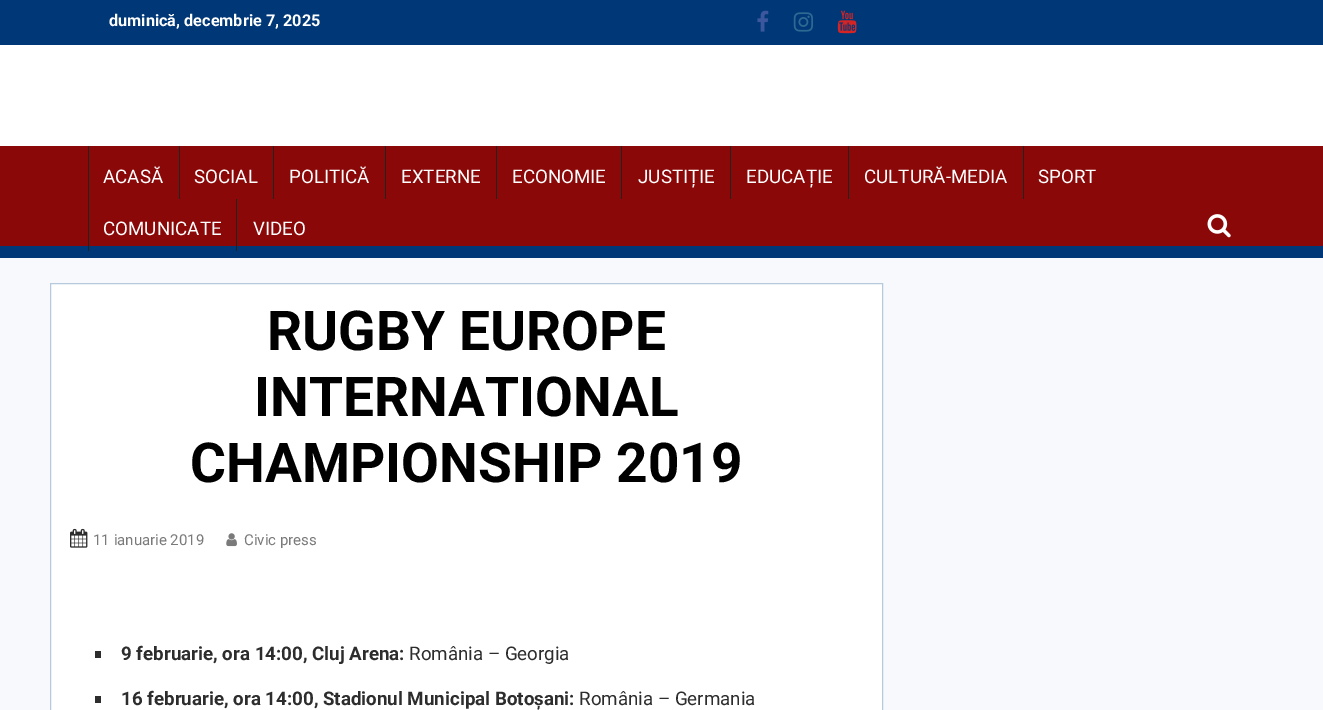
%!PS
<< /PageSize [1323 710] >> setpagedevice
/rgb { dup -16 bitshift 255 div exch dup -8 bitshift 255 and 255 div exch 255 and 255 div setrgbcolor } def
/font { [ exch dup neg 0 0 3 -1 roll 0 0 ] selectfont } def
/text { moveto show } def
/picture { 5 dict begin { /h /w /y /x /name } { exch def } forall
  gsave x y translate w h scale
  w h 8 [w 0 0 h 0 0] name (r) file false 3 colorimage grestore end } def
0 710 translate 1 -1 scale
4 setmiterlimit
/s1 { /Roboto-Bold 16.25 font 16#FFFFFF rgb } def
/s2 { /Roboto-Regular 18.75 font 16#FFFFFF rgb } def
/s3 { /Roboto-Bold 55 font 16#000000 rgb } def
/s4 { /Roboto-Regular 15 font 16#7A7A7A rgb } def
/s5 { /Roboto-Bold 18.75 font 16#2D2D2D rgb } def
/s6 { /Roboto-Regular 18.75 font 16#2D2D2D rgb } def
16#F7F9FC rgb
0 0 1323 710 rectfill
16#003777 rgb
0 0 1323 45 rectfill
s1
(duminică, decembrie 7, 2025) 109 26 text
(pic1.raw) 757 10 12 22 picture
(pic2.raw) 793 12 20 20 picture
(pic3.raw) 837 10 20 24 picture
0 45 1323 101 rectfill
16#8A0808 rgb
0 146 1323 100 rectfill
gsave
0 146 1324 105 rectclip
16#003777 rgb
-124 22 moveto 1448 22 lineto 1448 375 lineto -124 375 lineto closepath -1 139 moveto 1322 139 lineto 1323 139 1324 139 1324 140 curveto 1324 245 lineto 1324 246 1323 246 1322 246 curveto -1 246 lineto -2 246 -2 246 -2 245 curveto -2 140 lineto -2 139 -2 139 -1 139 curveto closepath eofill
grestore
16#003777 rgb
0 251 1323 7 rectfill
16#222222 rgb
88 146 1 105 rectfill
s2
(ACASĂ) 103 183 text
16#222222 rgb
179 146 1 53 rectfill
s2
(SOCIAL) 194 183 text
16#222222 rgb
273 146 1 53 rectfill
s2
(POLITICĂ) 289 183 text
16#222222 rgb
385 146 1 53 rectfill
s2
(EXTERNE) 401 183 text
16#222222 rgb
496 146 1 53 rectfill
s2
(ECONOMIE) 512 183 text
16#222222 rgb
621 146 1 53 rectfill
s2
(JUSTIȚIE) 638 183 text
16#222222 rgb
730 146 1 53 rectfill
s2
(EDUCAȚIE) 746 183 text
16#222222 rgb
848 146 1 53 rectfill
s2
(CULTURĂ-MEDIA) 864 183 text
16#222222 rgb
1023 146 1 53 rectfill
s2
(SPORT) 1038 183 text
(COMUNICATE) 103 235 text
16#222222 rgb
236 199 1 52 rectfill
s2
(VIDEO) 253 235 text
(pic4.raw) 1207 214 24 24 picture
50.5 283.5 moveto 882.5 283.5 lineto 882.5 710.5 lineto 50.5 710.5 lineto closepath gsave fill grestore
16#B5CBDD rgb
stroke
s3
(RUGBY EUROPE) 267 350 text
(INTERNATIONAL) 254 416 text
(CHAMPIONSHIP 2019) 190 482 text
(pic5.raw) 70 528 18 20 picture
s4
(11 ianuarie 2019) 93 545 text
(pic6.raw) 226 533 11 14 picture
(Civic press) 244 545 text
16#2D2D2D rgb
95 651 6 7 rectfill
s5
(9 februarie, ora 14:00, Cluj Arena:) 121 660 text
s6
(România – Georgia) 409 660 text
95 696 6 7 rectfill
s5
(16 februarie, ora 14:00, Stadionul Municipal Botoșani:) 121 705 text
s6
(România – Germania) 579 705 text
showpage
